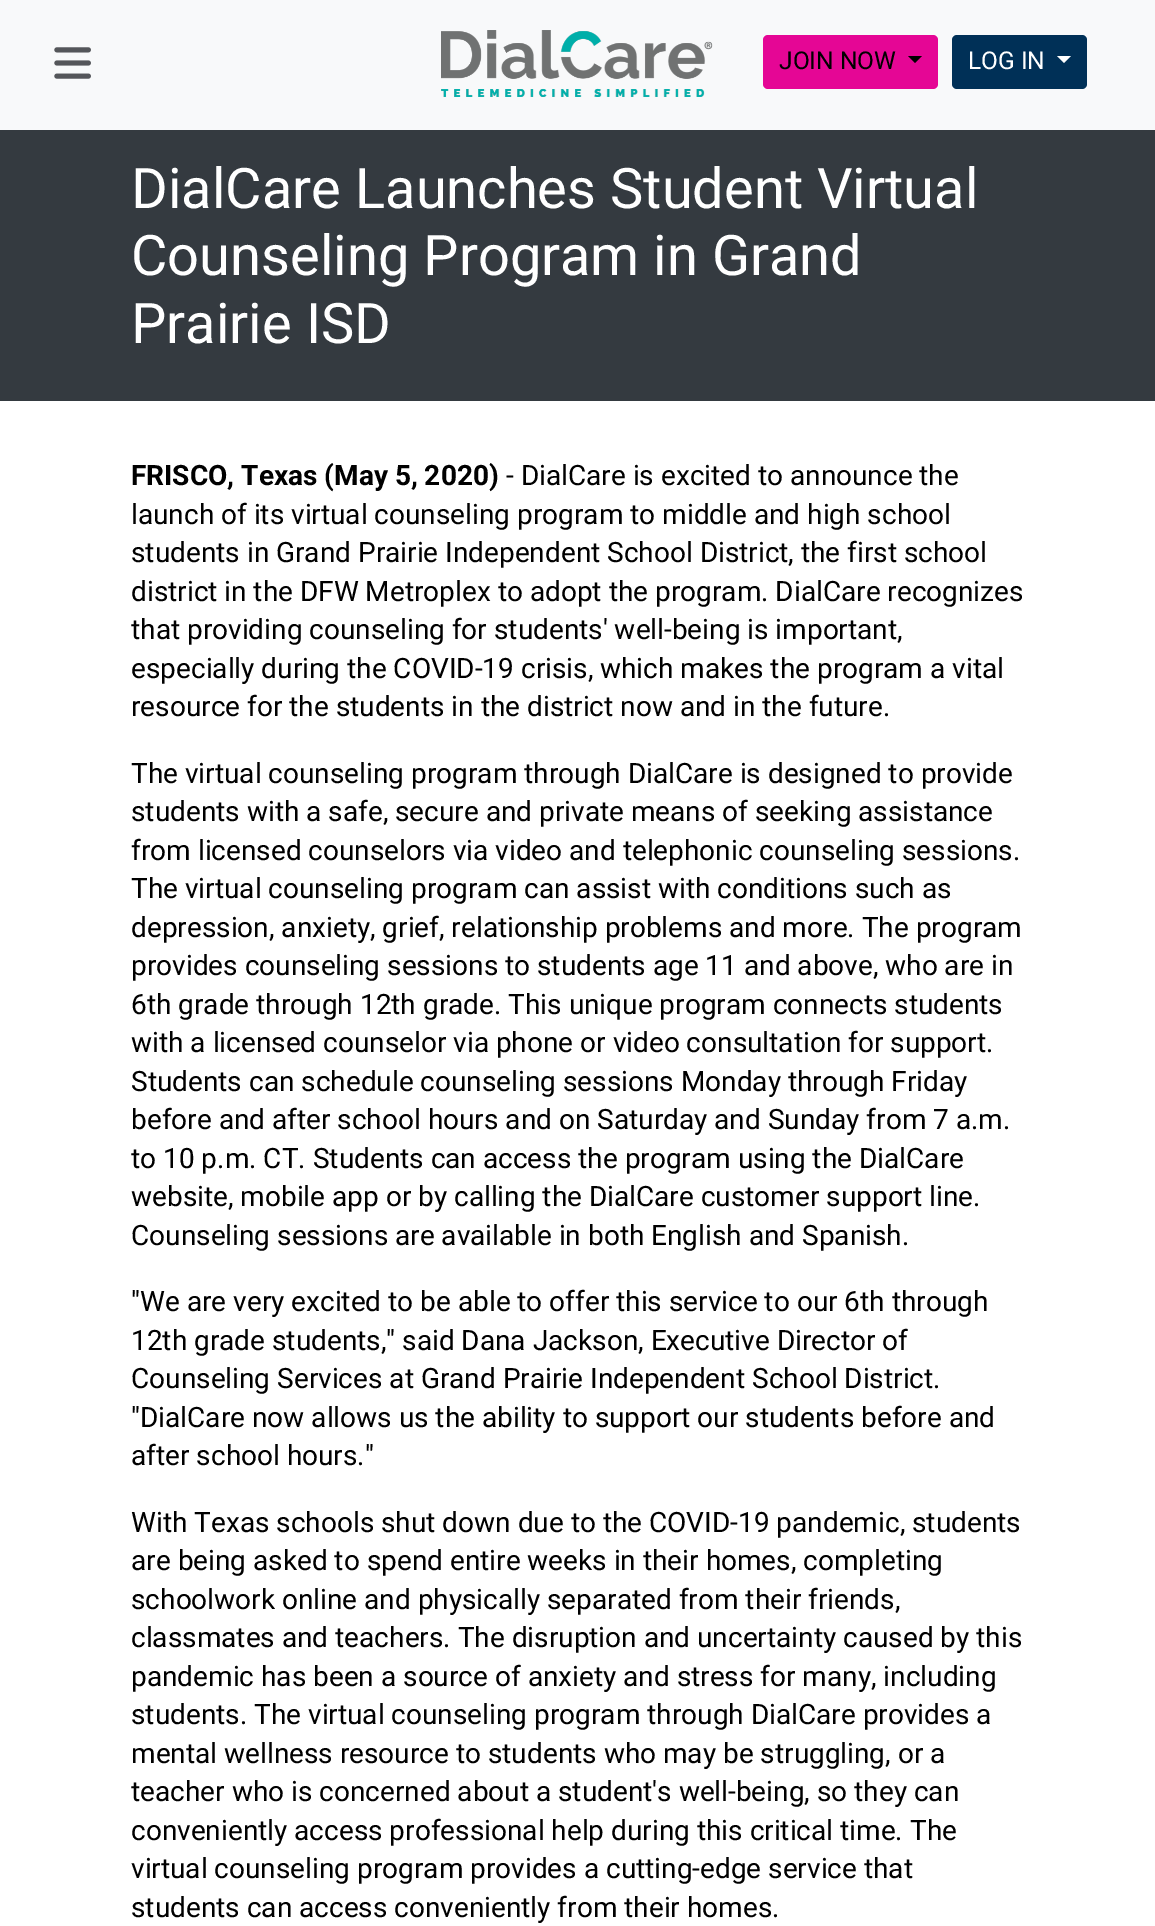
%!PS
<< /PageSize [1155 1926] >> setpagedevice
/rgb { dup -16 bitshift 255 div exch dup -8 bitshift 255 and 255 div exch 255 and 255 div setrgbcolor } def
/font { [ exch dup neg 0 0 3 -1 roll 0 0 ] selectfont } def
/text { moveto show } def
/roundrect { 5 dict begin { /r /h /w /y /x } { exch def } forall
  x r add y moveto x w add y 2 copy h add r arct x w add y h add x 1 index r arct
  x y h add x y r arct x y 2 copy exch w add exch r arct closepath end } def
/picture { 5 dict begin { /h /w /y /x /name } { exch def } forall
  gsave x y translate w h scale
  w h 8 [w 0 0 h 0 0] name (r) file false 3 colorimage grestore end } def
0 1926 translate 1 -1 scale
4 setmiterlimit
/s1 { /Roboto-Regular 24.5 font 16#000000 rgb } def
/s2 { /Roboto-Regular 24.5 font 16#FFFFFF rgb } def
/s3 { /Roboto-Regular 56 font 16#FFFFFF rgb } def
/s4 { /Roboto-Bold 28 font 16#000000 rgb } def
/s5 { /Roboto-Regular 28 font 16#000000 rgb } def
16#FFFFFF rgb
0 0 1155 1926 rectfill
16#F8F9FA rgb
0 0 1155 130 rectfill
(pic1.raw) 54 47 37 32 picture
(pic2.raw) 441 30 272 67 picture
16#E50695 rgb
763 35 175 54 5 roundrect fill
s1
(JOIN NOW) 779 69 text
908 56 moveto 922 56 lineto 915 63 lineto closepath fill
16#003057 rgb
952 35 135 54 5 roundrect fill
s2
(LOG IN) 968 69 text
1057 56 moveto 1071 56 lineto 1064 63 lineto closepath fill
16#343A40 rgb
0 130 1155 271 rectfill
s3
(DialCare Launches Student Virtual) 131 208 text
(Counseling Program in Grand) 131 275 text
(Prairie ISD) 131 343 text
s4
(FRISCO, Texas \(May 5, 2020\)) 131 485 text
s5
(- DialCare is excited to announce the) 506 485 text
(launch of its virtual counseling program to middle and high school) 131 524 text
(students in Grand Prairie Independent School District, the first school) 131 562 text
(district in the DFW Metroplex to adopt the program. DialCare recognizes) 131 601 text
(that providing counseling for students' well-being is important,) 131 639 text
(especially during the COVID-19 crisis, which makes the program a vital) 131 678 text
(resource for the students in the district now and in the future.) 131 716 text
(The virtual counseling program through DialCare is designed to provide) 131 783 text
(students with a safe, secure and private means of seeking assistance) 131 821 text
(from licensed counselors via video and telephonic counseling sessions.) 131 860 text
(The virtual counseling program can assist with conditions such as) 131 898 text
(depression, anxiety, grief, relationship problems and more. The program) 131 937 text
(provides counseling sessions to students age 11 and above, who are in) 131 975 text
(6th grade through 12th grade. This unique program connects students) 131 1014 text
(with a licensed counselor via phone or video consultation for support.) 131 1052 text
(Students can schedule counseling sessions Monday through Friday) 131 1091 text
(before and after school hours and on Saturday and Sunday from 7 a.m.) 131 1129 text
(to 10 p.m. CT. Students can access the program using the DialCare) 131 1168 text
(website, mobile app or by calling the DialCare customer support line.) 131 1206 text
(Counseling sessions are available in both English and Spanish.) 131 1245 text
("We are very excited to be able to offer this service to our 6th through) 131 1311 text
(12th grade students," said Dana Jackson, Executive Director of) 131 1350 text
(Counseling Services at Grand Prairie Independent School District.) 131 1388 text
("DialCare now allows us the ability to support our students before and) 131 1427 text
(after school hours.") 131 1465 text
(With Texas schools shut down due to the COVID-19 pandemic, students) 131 1532 text
(are being asked to spend entire weeks in their homes, completing) 131 1570 text
(schoolwork online and physically separated from their friends,) 131 1609 text
(classmates and teachers. The disruption and uncertainty caused by this) 131 1647 text
(pandemic has been a source of anxiety and stress for many, including) 131 1686 text
(students. The virtual counseling program through DialCare provides a) 131 1724 text
(mental wellness resource to students who may be struggling, or a) 131 1763 text
(teacher who is concerned about a student's well-being, so they can) 131 1801 text
(conveniently access professional help during this critical time. The) 131 1840 text
(virtual counseling program provides a cutting-edge service that) 131 1878 text
(students can access conveniently from their homes.) 131 1917 text
showpage
